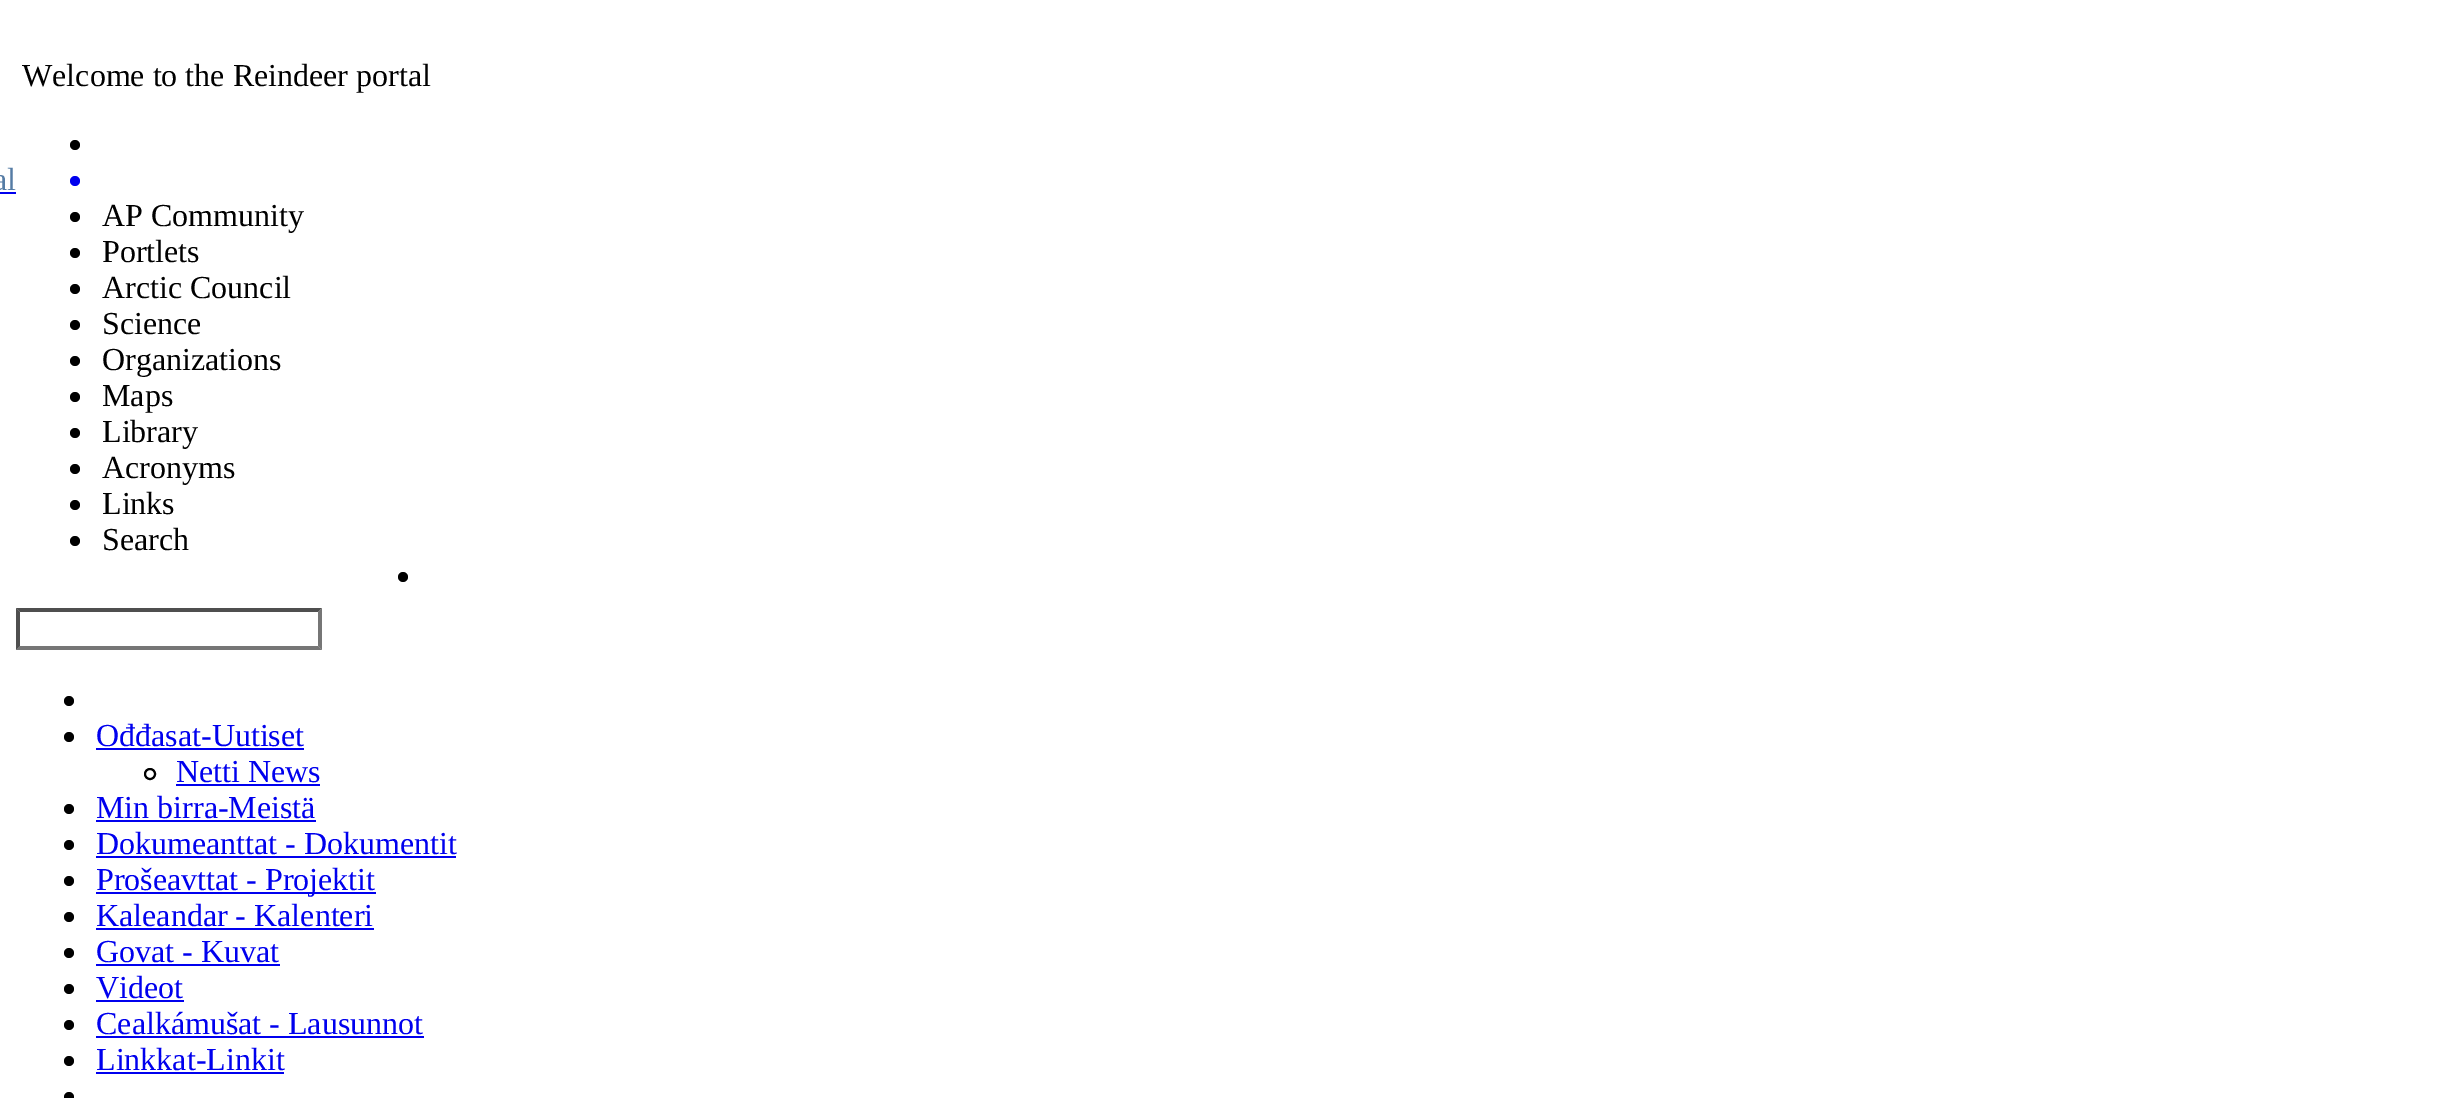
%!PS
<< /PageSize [2464 1098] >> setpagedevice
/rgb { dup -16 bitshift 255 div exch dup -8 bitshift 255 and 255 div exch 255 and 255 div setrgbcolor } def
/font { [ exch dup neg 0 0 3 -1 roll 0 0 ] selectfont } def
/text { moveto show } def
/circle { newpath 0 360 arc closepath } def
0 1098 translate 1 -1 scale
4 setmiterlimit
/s1 { /LiberationSerif-Regular 32 font 16#000000 rgb } def
/s2 { /LiberationSerif-Regular 32 font 16#557CA5 rgb } def
/s3 { /LiberationSerif-Regular 32 font 16#0000EE rgb } def
16#FFFFFF rgb
0 0 2464 1098 rectfill
s1
(Welcome to the Reindeer portal) 22 86 text
75 145 5 circle fill
s2
(al) -7 190 text
16#0000EE rgb
0 192 16 2 rectfill
75 181 5 circle fill
16#000000 rgb
75 217 5 circle fill
(AP Community) 102 226 text
75 253 5 circle fill
(Portlets) 102 262 text
75 289 5 circle fill
(Arctic Council) 102 298 text
75 325 5 circle fill
(Science) 102 334 text
75 361 5 circle fill
(Organizations) 102 370 text
75 397 5 circle fill
(Maps) 102 406 text
75 433 5 circle fill
(Library) 102 442 text
75 469 5 circle fill
(Acronyms) 102 478 text
75 505 5 circle fill
(Links) 102 514 text
75 541 5 circle fill
(Search) 102 550 text
403 577 5 circle fill
16#4F4F4F rgb
16 608 moveto 322 608 lineto 318 612 lineto 20 612 lineto closepath fill
16#767676 rgb
322 608 moveto 322 650 lineto 318 646 lineto 318 612 lineto closepath fill
322 650 moveto 16 650 lineto 20 646 lineto 318 646 lineto closepath fill
16#4F4F4F rgb
16 650 moveto 16 608 lineto 20 612 lineto 20 646 lineto closepath fill
16#000000 rgb
69 701 5 circle fill
69 737 5 circle fill
s3
(Ođđasat-Uutiset) 96 746 text
96 748 208 2 rectfill
16#000000 rgb
2 setlinewidth
150 774 5 circle stroke
s3
(Netti News) 176 782 text
176 784 144 2 rectfill
16#000000 rgb
69 809 5 circle fill
s3
(Min birra-Meistä) 96 818 text
96 820 220 2 rectfill
16#000000 rgb
69 845 5 circle fill
s3
(Dokumeanttat - Dokumentit) 96 854 text
96 856 360 2 rectfill
16#000000 rgb
69 881 5 circle fill
16#0000EE rgb
96 892 280 2 rectfill
(Prošeavttat - Projektit) 96 890 text
16#000000 rgb
69 917 5 circle fill
s3
(Kaleandar - Kalenteri) 96 926 text
96 928 278 2 rectfill
16#000000 rgb
69 953 5 circle fill
s3
(Govat - Kuvat) 96 962 text
96 964 184 2 rectfill
16#000000 rgb
69 989 5 circle fill
s3
(Videot) 96 998 text
96 1000 88 2 rectfill
16#000000 rgb
69 1025 5 circle fill
s3
(Cealkámušat - Lausunnot) 96 1034 text
96 1036 328 2 rectfill
16#000000 rgb
69 1061 5 circle fill
s3
(Linkkat-Linkit) 96 1070 text
96 1072 188 2 rectfill
16#000000 rgb
69 1097 5 circle fill
showpage
